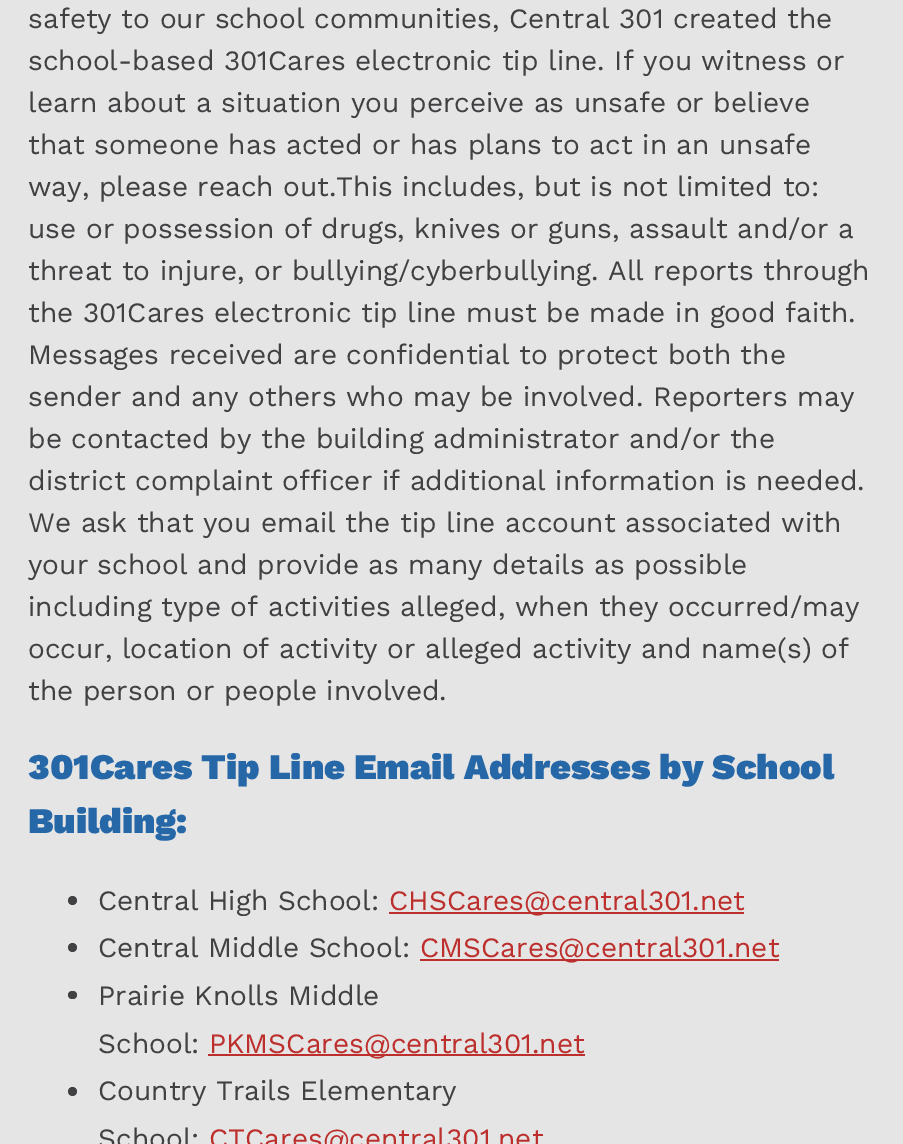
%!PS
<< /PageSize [903 1144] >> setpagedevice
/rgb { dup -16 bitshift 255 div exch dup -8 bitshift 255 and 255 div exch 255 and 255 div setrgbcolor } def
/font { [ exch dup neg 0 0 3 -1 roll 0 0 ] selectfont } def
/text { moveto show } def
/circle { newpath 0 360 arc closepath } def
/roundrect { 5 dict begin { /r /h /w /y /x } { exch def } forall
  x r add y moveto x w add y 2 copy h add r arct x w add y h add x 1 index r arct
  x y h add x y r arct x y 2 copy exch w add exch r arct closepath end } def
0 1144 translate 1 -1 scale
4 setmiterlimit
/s1 { /WorkSans-Regular 28 font 16#414042 rgb } def
/s2 { /WorkSans-Black 36.1 font 16#2567A7 rgb } def
/s3 { /WorkSans-Regular 28 font 16#BC2F2C rgb } def
16#E5E5E5 rgb
0 0 903 1144 rectfill
s1
(safety to our school communities, Central 301 created the) 28 28 text
(school-based 301Cares electronic tip line. If you witness or) 28 70 text
(learn about a situation you perceive as unsafe or believe) 28 112 text
(that someone has acted or has plans to act in an unsafe) 28 154 text
(way, please reach out.This includes, but is not limited to:) 28 196 text
(use or possession of drugs, knives or guns, assault and/or a) 28 238 text
(threat to injure, or bullying/cyberbullying. All reports through) 28 280 text
(the 301Cares electronic tip line must be made in good faith.) 28 322 text
(Messages received are confidential to protect both the) 28 364 text
(sender and any others who may be involved. Reporters may) 28 406 text
(be contacted by the building administrator and/or the) 28 448 text
(district complaint officer if additional information is needed.) 28 490 text
(We ask that you email the tip line account associated with) 28 532 text
(your school and provide as many details as possible) 28 574 text
(including type of activities alleged, when they occurred/may) 28 616 text
(occur, location of activity or alleged activity and name\(s\) of) 28 658 text
(the person or people involved.) 28 700 text
s2
(301Cares Tip Line Email Addresses by School) 28 779 text
(Building:) 28 833 text
16#414042 rgb
72.5 900.5 4.5 circle fill
s1
(Central High School:) 98 910 text
16#BC2F2C rgb
389 912 355 2 rectfill
(CHSCares@central301.net) 389 910 text
16#414042 rgb
72.5 947.5 4.5 circle fill
(Central Middle School:) 98 957 text
16#BC2F2C rgb
420 959 359 2 rectfill
(CMSCares@central301.net) 420 957 text
16#414042 rgb
68 991 9 8 4 roundrect fill
(Prairie Knolls Middle) 98 1005 text
(School:) 98 1053 text
16#BC2F2C rgb
208 1054 377 2 rectfill
(PKMSCares@central301.net) 209 1053 text
16#414042 rgb
72.5 1091.5 4.5 circle fill
(Country Trails Elementary) 98 1100 text
(School:) 98 1148 text
s3
(CTCares@central301.net) 209 1148 text
showpage
